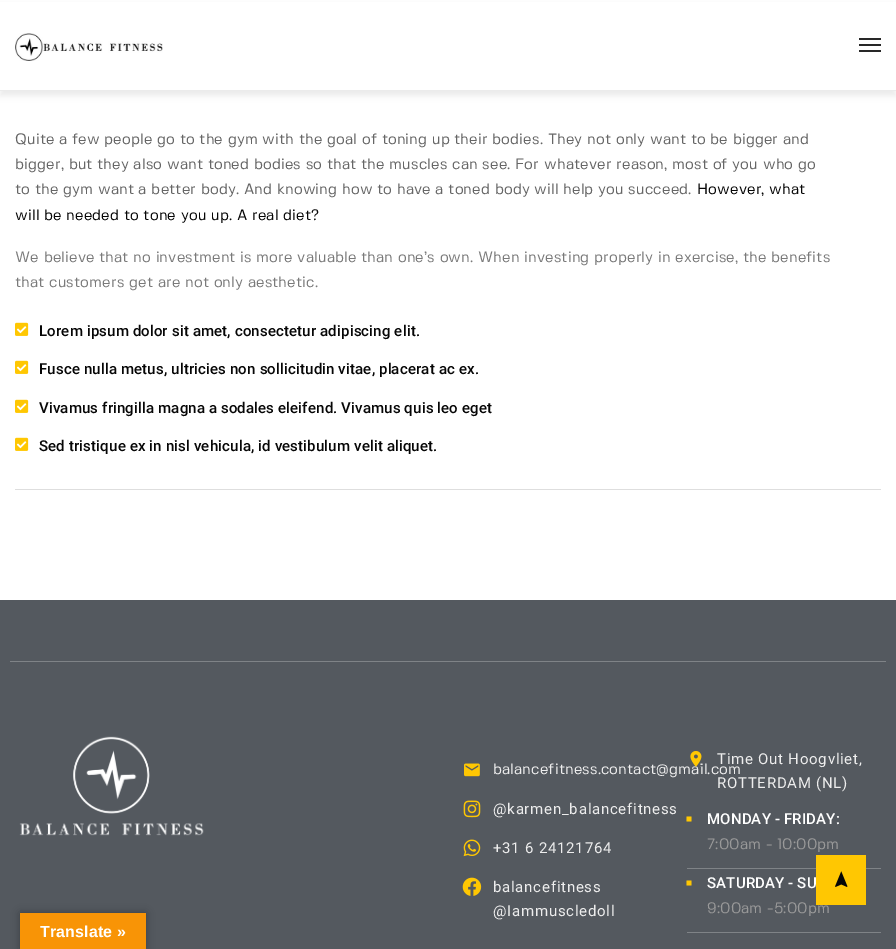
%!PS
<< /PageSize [896 949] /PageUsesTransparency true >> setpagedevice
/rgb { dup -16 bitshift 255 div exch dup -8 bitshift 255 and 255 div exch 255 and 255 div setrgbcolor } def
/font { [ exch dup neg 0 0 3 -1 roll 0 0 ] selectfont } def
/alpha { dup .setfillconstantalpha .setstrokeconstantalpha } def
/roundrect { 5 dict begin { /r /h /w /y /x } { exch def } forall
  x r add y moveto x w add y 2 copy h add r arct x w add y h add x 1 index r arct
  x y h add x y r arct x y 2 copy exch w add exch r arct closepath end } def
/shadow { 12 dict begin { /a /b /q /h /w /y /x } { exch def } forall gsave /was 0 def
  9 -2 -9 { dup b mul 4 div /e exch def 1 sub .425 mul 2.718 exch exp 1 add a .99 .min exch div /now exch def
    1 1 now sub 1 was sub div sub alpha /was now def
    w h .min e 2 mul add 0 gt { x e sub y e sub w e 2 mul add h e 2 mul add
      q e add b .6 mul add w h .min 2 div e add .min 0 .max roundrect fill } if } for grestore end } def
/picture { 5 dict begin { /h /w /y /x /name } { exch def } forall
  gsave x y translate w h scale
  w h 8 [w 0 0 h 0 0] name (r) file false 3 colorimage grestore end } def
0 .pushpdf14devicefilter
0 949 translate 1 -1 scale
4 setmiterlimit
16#FFFFFF rgb
0 0 896 949 rectfill
16#000000 rgb
0 5 896 91 0 3 0.07 shadow
16#FFFFFF rgb
0 2 896 88 rectfill
16#EBEBEB rgb
0 90 896 1 rectfill
(pic1.raw) 15 33 148 28 picture
16#282828 rgb
859 38 22 2 rectfill
859 44 22 2 rectfill
859 50 22 2 rectfill
/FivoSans-Regular 15 font
16#666666 rgb
15 144 moveto 0.15 0 (Quite a few people go to the gym with the goal of toning up their bodies. They not only want to be bigger and) ashow
15 169 moveto 0.15 0 (bigger, but they also want toned bodies so that the muscles can see. For whatever reason, most of you who go) ashow
15 194 moveto 0.15 0 (to the gym want a better body. And knowing how to have a toned body will help you succeed.) ashow
16#060606 rgb
697 194 moveto 0.15 0 (However, what) ashow
15 220 moveto 0.15 0 (will be needed to tone you up. A real diet?) ashow
16#7A7A7A rgb
15 262 moveto 0.15 0 (We believe that no investment is more valuable than one’s own. When investing properly in exercise, the benefits) ashow
15 287 moveto 0.15 0 (that customers get are not only aesthetic.) ashow
(pic2.raw) 15 322 14 14 picture
/Roboto-Medium 15 font
16#060606 rgb
39 336 moveto 0.15 0 (Lorem ipsum dolor sit amet, consectetur adipiscing elit.) ashow
(pic2.raw) 15 360 14 14 picture
39 374 moveto 0.15 0 (Fusce nulla metus, ultricies non sollicitudin vitae, placerat ac ex.) ashow
(pic2.raw) 15 399 14 14 picture
39 413 moveto 0.15 0 (Vivamus fringilla magna a sodales eleifend. Vivamus quis leo eget) ashow
(pic2.raw) 15 437 14 14 picture
39 451 moveto 0.15 0 (Sed tristique ex in nisl vehicula, id vestibulum velit aliquet.) ashow
16#DEDEDE rgb
15 489 866 1 rectfill
16#54595F rgb
0 600 896 349 rectfill
16#7F8387 rgb
10 661 876 1 rectfill
(pic3.raw) 19 736 185 100 picture
(pic4.raw) 464 763 16 14 picture
/FivoSans-Regular 15 font
16#EDEDED rgb
493 774 moveto 0.15 0 (balancefitness.contact@gmail.com) ashow
(pic5.raw) 463 800 18 18 picture
/Roboto-Regular 15 font
493 814 moveto 0.75 0 (@karmen_balancefitness) ashow
(pic6.raw) 463 839 18 18 picture
493 853 moveto 0.75 0 (+31 6 24121764) ashow
(pic7.raw) 462 877 20 19 picture
493 892 moveto 0.75 0 (balancefitness) ashow
493 916 moveto 0.75 0 (@Iammuscledoll) ashow
(pic8.raw) 690 751 12 16 picture
717 764 moveto 0.75 0 (Time Out Hoogvliet,) ashow
717 788 moveto 0.75 0 (ROTTERDAM \(NL\)) ashow
16#7F8387 rgb
687 868 194 1 rectfill
16#FFC702 rgb
691.5 821.5 moveto 686.5 821.5 lineto 686.5 816.5 lineto 691.5 816.5 lineto closepath fill
/Roboto-Medium 15 font
16#FFFFFF rgb
707 824 moveto 0.15 0 (MONDAY - FRIDAY:) ashow
/FivoSans-Regular 15 font
16#999999 rgb
707 849 moveto 0.15 0 (7:00am - 10:00pm) ashow
16#7F8387 rgb
687 932 194 1 rectfill
16#FFC702 rgb
691.5 885.5 moveto 686.5 885.5 lineto 686.5 880.5 lineto 691.5 880.5 lineto closepath fill
/Roboto-Medium 15 font
16#FFFFFF rgb
707 888 moveto 0.15 0 (SATURDAY - SU) ashow
/FivoSans-Regular 15 font
16#999999 rgb
707 913 moveto 0.15 0 (9:00am -5:00pm) ashow
16#FFC702 rgb
816 855 50 50 rectfill
(pic9.raw) 835 871 13 16 picture
16#000000 rgb
20 913 126 36 0 4.5 0.3 shadow
16#F89406 rgb
20 913 126 36 rectfill
/LiberationSans-Bold 16 font
16#FFFFFF rgb
40 937 moveto 0.15 0 (Translate ») ashow
.poppdf14devicefilter showpage
